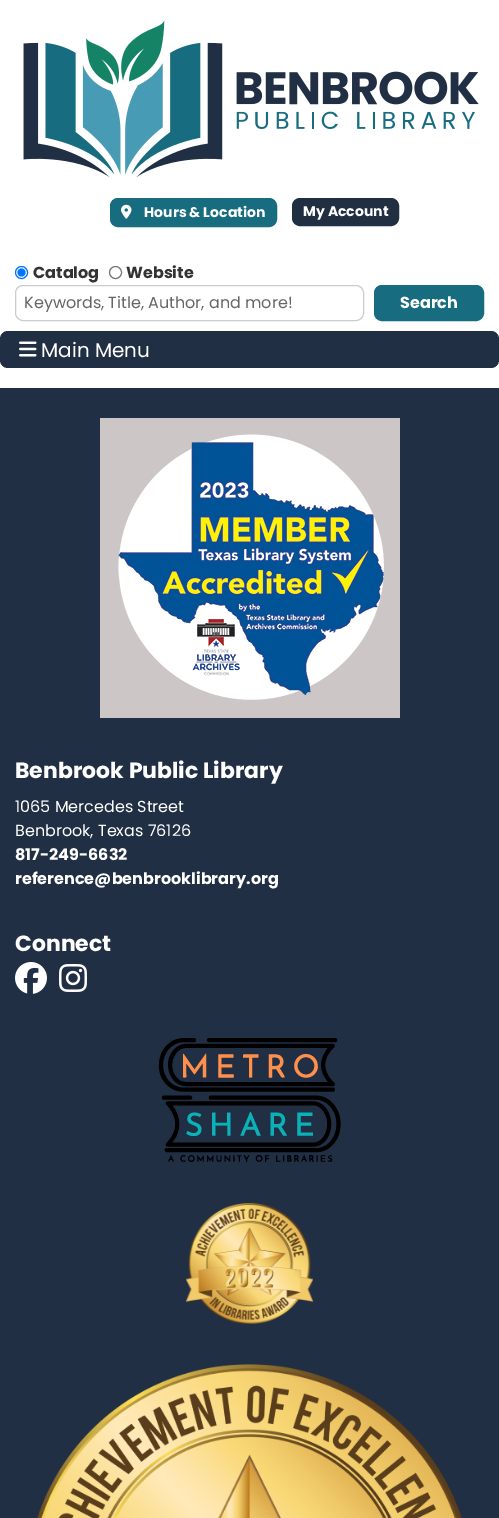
%!PS
<< /PageSize [499 1518] >> setpagedevice
/rgb { dup -16 bitshift 255 div exch dup -8 bitshift 255 and 255 div exch 255 and 255 div setrgbcolor } def
/font { [ exch dup neg 0 0 3 -1 roll 0 0 ] selectfont } def
/text { moveto show } def
/circle { newpath 0 360 arc closepath } def
/roundrect { 5 dict begin { /r /h /w /y /x } { exch def } forall
  x r add y moveto x w add y 2 copy h add r arct x w add y h add x 1 index r arct
  x y h add x y r arct x y 2 copy exch w add exch r arct closepath end } def
/picture { 5 dict begin { /h /w /y /x /name } { exch def } forall
  gsave x y translate w h scale
  w h 8 [w 0 0 h 0 0] name (r) file false 3 colorimage grestore end } def
0 1518 translate 1 -1 scale
4 setmiterlimit
/s1 { /Poppins-Bold 14 font 16#FFFFFF rgb } def
/s2 { /Poppins-Bold 16 font 16#333333 rgb } def
/s3 { /Poppins-Regular 16 font 16#666666 rgb } def
/s4 { /Poppins-Bold 16 font 16#FFFFFF rgb } def
/s5 { /Poppins-Regular 20 font 16#FFFFFF rgb } def
/s6 { /Poppins-Bold 22 font 16#FFFFFF rgb } def
/s7 { /Poppins-Regular 16 font 16#FFFFFF rgb } def
16#FFFFFF rgb
0 0 499 1518 rectfill
(pic1.raw) 23 20 456 157 picture
16#176C7F rgb
110.5 198.5 166 28 7.5 roundrect gsave fill grestore
stroke
(pic2.raw) 121 204 11 15 picture
s1
(Hours & Location) 144 217 text
16#212F43 rgb
292.5 198.5 106 27 7.5 roundrect gsave fill grestore
stroke
s1
(My Account) 303 216 text
16#0075FF rgb
21.5 272.5 6 circle stroke
21.5 272.5 4 circle fill
s2
(Catalog) 33 278 text
16#767676 rgb
115.5 272.5 6 circle stroke
s2
(Website) 126 278 text
16#CCCCCC rgb
15.5 285.5 348 35 7.5 roundrect stroke
s3
(Keywords, Title, Author, and more!) 24 308 text
16#176C7F rgb
374.5 285.5 109 35 7.5 roundrect gsave fill grestore
stroke
s4
(Search) 400 308 text
16#212F44 rgb
0 331 499 37 8 roundrect fill
(pic3.raw) 19 341 18 16 picture
s5
(Main Menu) 41 357 text
16#212F44 rgb
0 388 499 1130 rectfill
(pic4.raw) 100 418 300 300 picture
s6
(Benbrook Public Library) 15 778 text
s7
(1065 Mercedes Street) 15 812 text
(Benbrook, Texas 76126) 15 836 text
s4
(817-249-6632) 15 860 text
(reference@benbrooklibrary.org) 15 884 text
s6
(Connect) 15 951 text
(pic5.raw) 15 962 32 32 picture
(pic6.raw) 59 964 28 28 picture
(pic7.raw) 158 1038 183 124 picture
(pic8.raw) 186 1203 127 121 picture
(pic9.raw) 37 1364 425 154 picture
showpage
